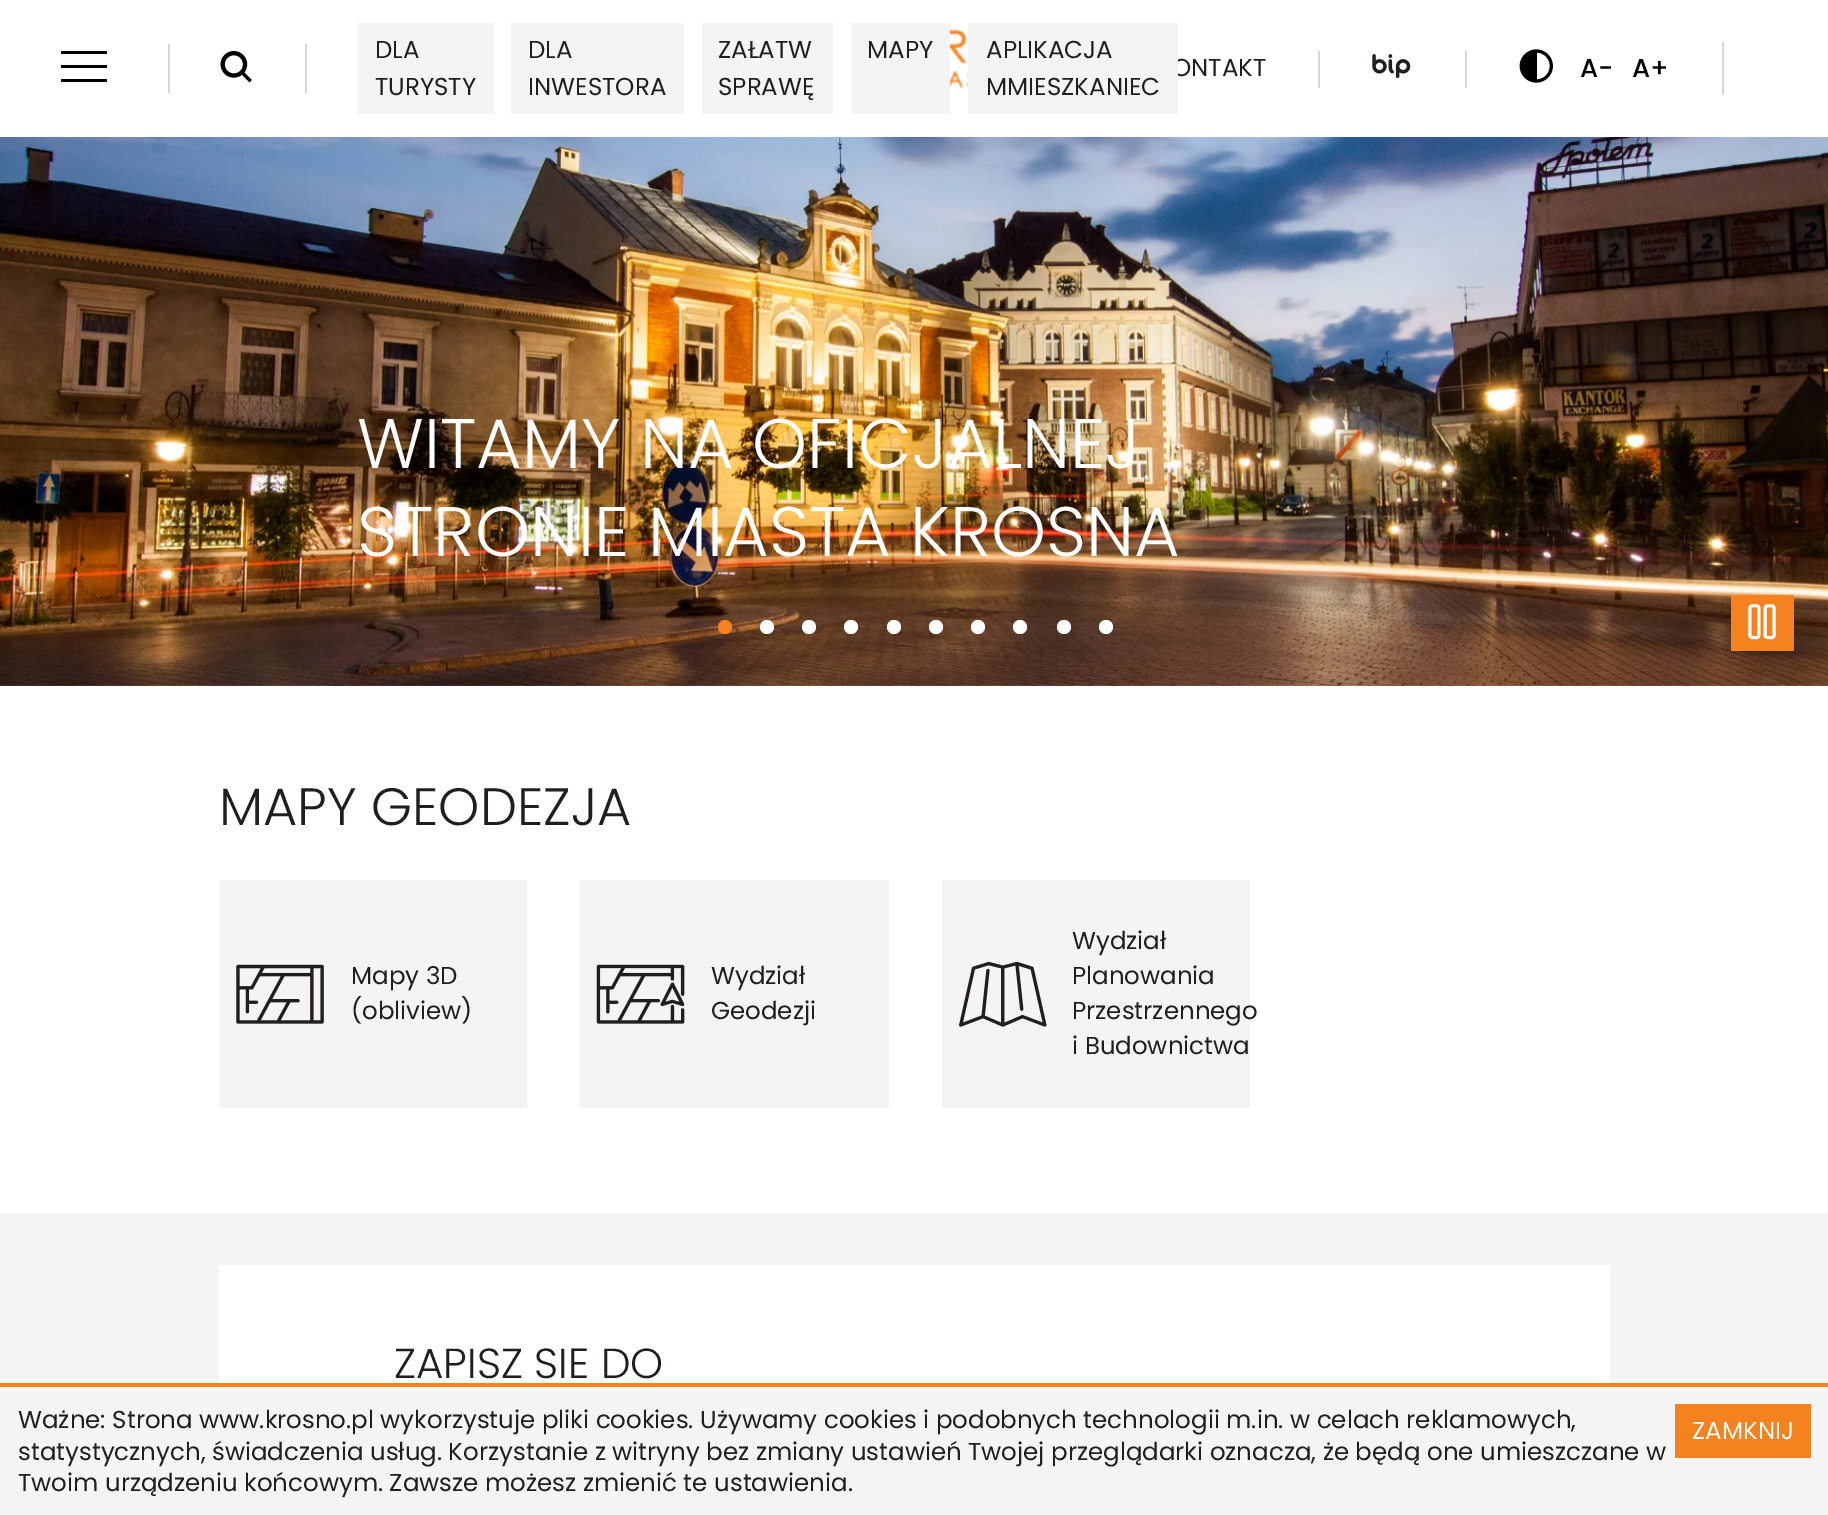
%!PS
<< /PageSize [1828 1515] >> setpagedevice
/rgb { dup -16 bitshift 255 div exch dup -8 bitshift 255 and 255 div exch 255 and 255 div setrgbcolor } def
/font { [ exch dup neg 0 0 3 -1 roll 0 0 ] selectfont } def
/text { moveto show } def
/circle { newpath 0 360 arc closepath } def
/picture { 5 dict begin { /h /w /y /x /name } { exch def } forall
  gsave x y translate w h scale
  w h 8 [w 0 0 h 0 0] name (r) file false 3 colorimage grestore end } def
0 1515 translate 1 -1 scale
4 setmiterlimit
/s1 { /Poppins-Regular 24.5 font 16#221E1F rgb } def
/s2 { /Poppins-Medium 26 font 16#000000 rgb } def
/s3 { /Poppins-Light 70 font 16#FFFFFF rgb } def
/s4 { /Poppins-Light 52.5 font 16#221E1F rgb } def
/s5 { /Poppins-Light 42 font 16#221E1F rgb } def
/s6 { /Poppins-Regular 24.5 font 16#FFFFFF rgb } def
16#FFFFFF rgb
0 0 1828 1515 rectfill
(pic1.raw) 950 29 18 59 picture
16#000000 rgb
61 82 moveto 61 79 lineto 107 79 lineto 107 82 lineto closepath 61 65 moveto 107 65 lineto 107 68 lineto 61 68 lineto closepath 61 51 moveto 107 51 lineto 107 54 lineto 61 54 lineto closepath fill
16#D7D7D7 rgb
168 44 2 49 rectfill
(pic2.raw) 220 51 32 32 picture
305 44 2 49 rectfill
16#F4F4F4 rgb
357 23 137 91 rectfill
s1
(DLA) 375 58 text
(TURYSTY) 375 95 text
16#F4F4F4 rgb
511 23 173 91 rectfill
s1
(DLA) 528 58 text
(INWESTORA) 528 95 text
16#F4F4F4 rgb
702 23 131 91 rectfill
s1
(ZAŁATW) 718 58 text
(SPRAWĘ) 718 95 text
16#F4F4F4 rgb
851 23 99 91 rectfill
s1
(MAPY) 867 58 text
(ONTAKT) 1172 76 text
16#F4F4F4 rgb
968 23 210 91 rectfill
s1
(APLIKACJA) 986 58 text
(MMIESZKANIEC) 986 95 text
16#D7D7D7 rgb
1318 51 2 37 rectfill
1465 51 2 37 rectfill
(pic3.raw) 1372 54 39 25 picture
1722 42 2 53 rectfill
(pic4.raw) 1519 49 34 34 picture
s2
(A-) 1580 77 text
(A+) 1632 77 text
(pic5.raw) 0 137 1828 549 picture
s3
(WITAMY NA OFICJALNEJ) 357 468 text
(STRONIE MIASTA KROSNA) 357 556 text
16#F5821F rgb
725 627 7 circle fill
16#FFFFFF rgb
767 627 7 circle fill
809 627 7 circle fill
851 627 7 circle fill
894 627 7 circle fill
936 627 7 circle fill
978 627 7 circle fill
1020 627 7 circle fill
1064 627 7 circle fill
1106 627 7 circle fill
16#F5821F rgb
1731 595 63 56 rectfill
(pic6.raw) 1748 604 28 36 picture
s4
(MAPY GEODEZJA) 219 825 text
16#F4F4F4 rgb
219 880 308 228 rectfill
(pic7.raw) 236 964 88 60 picture
s1
(Mapy 3D) 351 984 text
(\(obliview\)) 351 1019 text
16#F4F4F4 rgb
579 880 310 228 rectfill
(pic8.raw) 596 964 89 60 picture
s1
(Wydział) 711 984 text
(Geodezji) 711 1019 text
16#F4F4F4 rgb
942 880 308 228 rectfill
s1
(Wydział) 1072 949 text
(pic9.raw) 959 961 88 66 picture
(Planowania) 1072 984 text
(Przestrzennego) 1072 1019 text
(i Budownictwa) 1072 1054 text
16#F4F4F4 rgb
0 1213 1828 170 rectfill
16#FFFFFF rgb
219 1265 1391 118 rectfill
s5
(ZAPISZ SIE DO) 394 1378 text
16#F4F4F4 rgb
0 1387 1828 128 rectfill
16#F5821F rgb
0 1383 1828 4 rectfill
s1
(Ważne: Strona www.krosno.pl wykorzystuje pliki cookies. Używamy cookies i podobnych technologii m.in. w celach reklamowych,) 18 1428 text
(statystycznych, świadczenia usług. Korzystanie z witryny bez zmiany ustawień Twojej przeglądarki oznacza, że będą one umieszczane w) 18 1460 text
(Twoim urządzeniu końcowym. Zawsze możesz zmienić te ustawienia.) 18 1491 text
16#F5821F rgb
1675 1404 136 54 rectfill
s6
(ZAMKNIJ) 1692 1439 text
showpage
